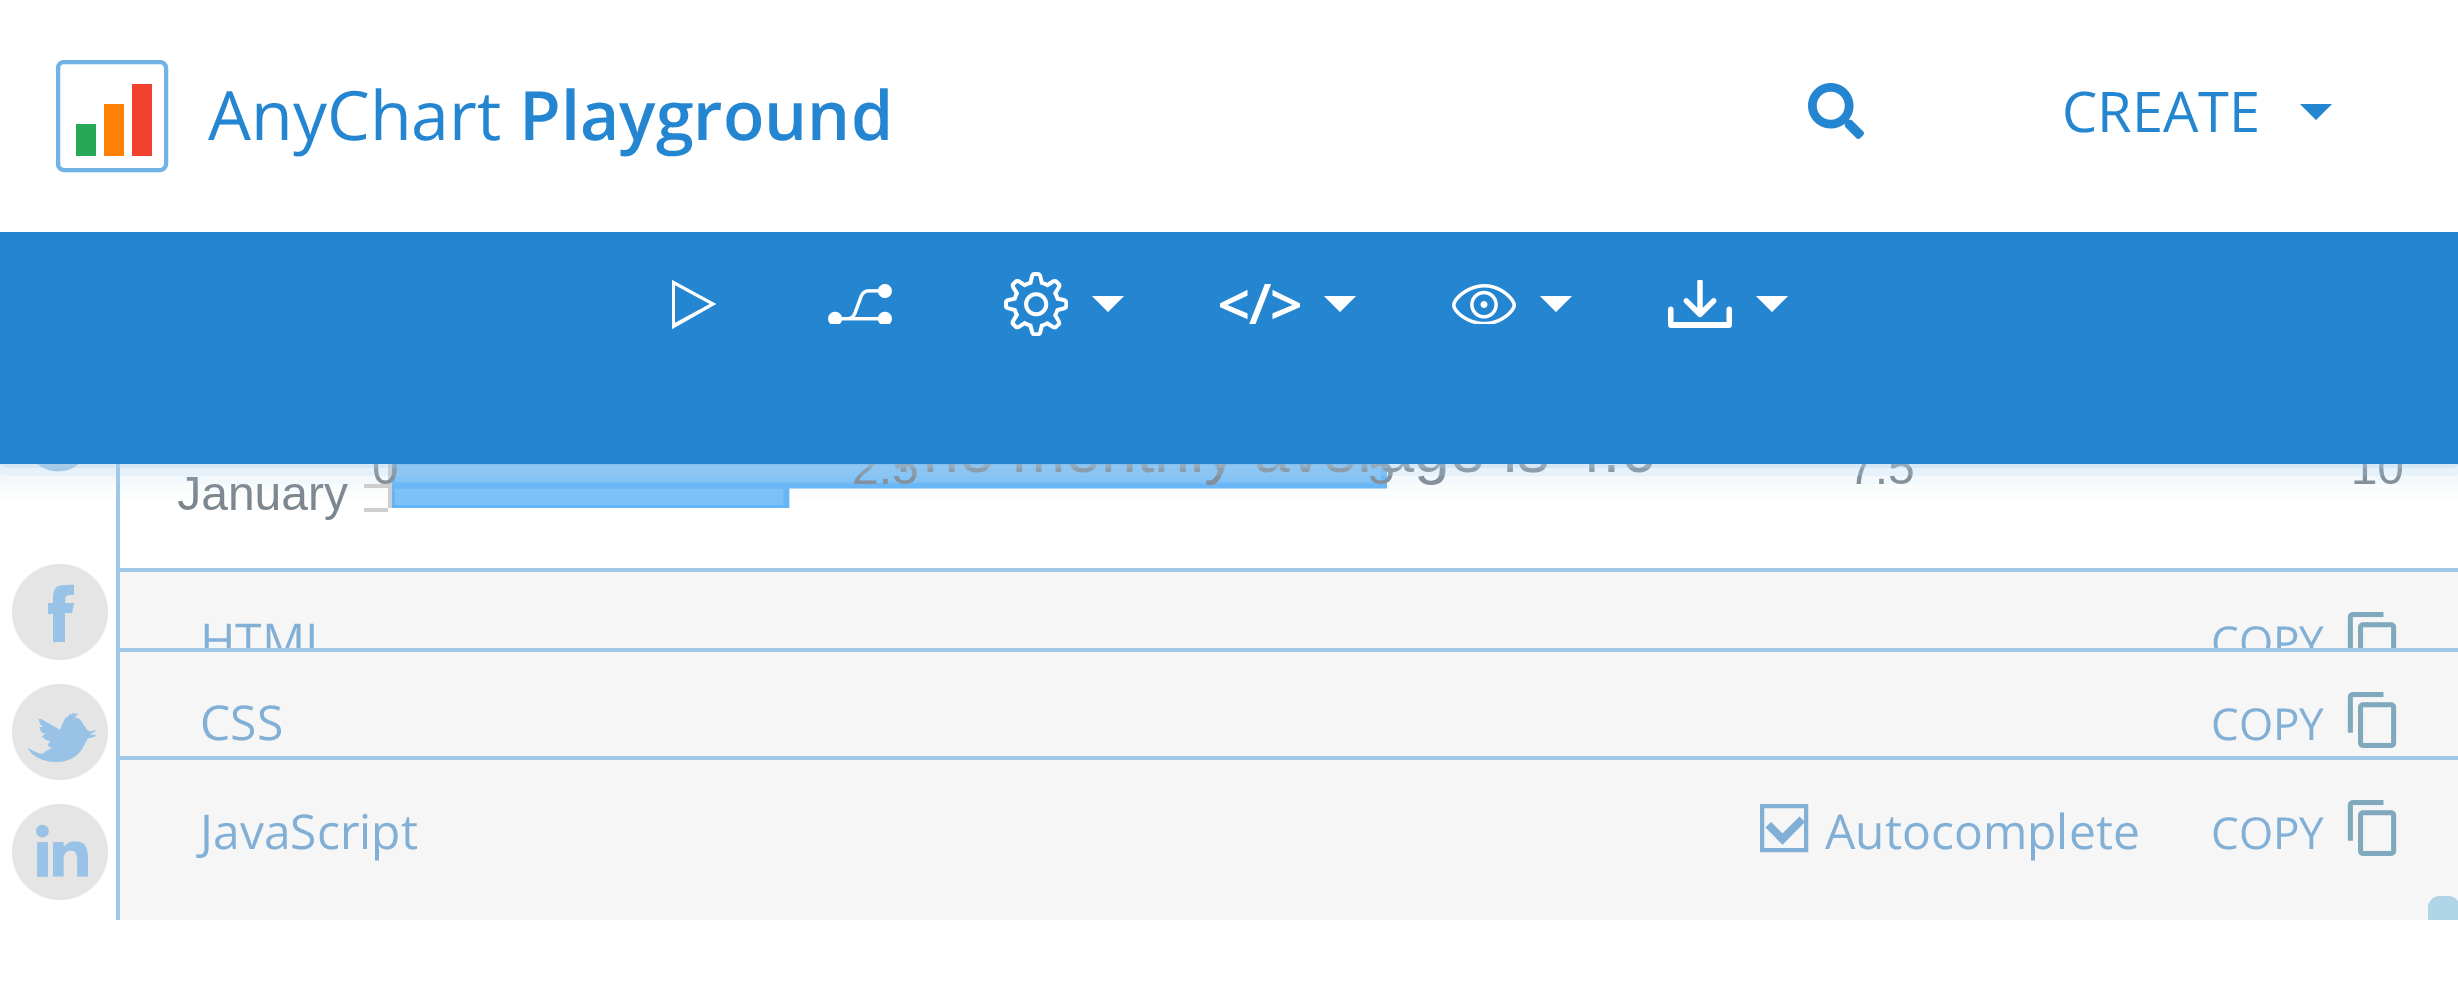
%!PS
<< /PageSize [2458 1005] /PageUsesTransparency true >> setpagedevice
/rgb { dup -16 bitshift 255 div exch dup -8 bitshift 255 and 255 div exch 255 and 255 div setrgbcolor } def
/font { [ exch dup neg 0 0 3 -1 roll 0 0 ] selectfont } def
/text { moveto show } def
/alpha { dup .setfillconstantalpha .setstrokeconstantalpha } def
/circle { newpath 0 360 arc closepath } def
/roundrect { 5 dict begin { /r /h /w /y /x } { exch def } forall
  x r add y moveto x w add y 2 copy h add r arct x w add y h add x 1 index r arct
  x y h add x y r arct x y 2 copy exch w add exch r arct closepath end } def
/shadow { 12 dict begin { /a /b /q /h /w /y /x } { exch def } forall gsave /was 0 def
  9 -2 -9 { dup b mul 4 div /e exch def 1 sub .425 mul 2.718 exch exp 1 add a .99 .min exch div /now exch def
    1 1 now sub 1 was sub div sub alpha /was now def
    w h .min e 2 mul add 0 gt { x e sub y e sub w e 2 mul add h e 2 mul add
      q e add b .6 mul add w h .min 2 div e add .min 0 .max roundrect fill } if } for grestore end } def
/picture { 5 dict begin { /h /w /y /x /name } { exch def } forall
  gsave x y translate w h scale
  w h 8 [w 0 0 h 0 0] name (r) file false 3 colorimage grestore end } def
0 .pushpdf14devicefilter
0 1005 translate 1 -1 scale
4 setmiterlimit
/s1 { /OpenSans-Regular 68 font 16#2485D0 rgb } def
/s2 { /OpenSans-SemiBold 68 font 16#2485D0 rgb } def
/s3 { /OpenSans-Regular 56 font 16#2485D0 rgb } def
/s4 { /OpenSans-Regular 48 font 16#81AFD5 rgb } def
/s5 { /OpenSans-Regular 44 font 16#81AFD5 rgb } def
16#FFFFFF rgb
0 0 2458 1005 rectfill
16#9FC7E7 rgb
116 464 4 456 rectfill
(pic6.raw) 37 464 42 8 picture
(pic9.raw) 178 464 2225 56 picture
16#ACD0EC rgb
0 0 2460 464 0 16 1 shadow
16#FFFFFF rgb
0 0 2458 232 rectfill
16#70B2E4 rgb
4 setlinewidth
58 62 108 108 6 roundrect stroke
16#26A957 rgb
76 124 20 32 rectfill
16#FF8207 rgb
104 104 20 52 rectfill
16#F0402E rgb
132 84 20 72 rectfill
s1
(AnyChart) 208 140 text
s2
(Playground) 519 140 text
(pic1.raw) 1808 83 56 56 picture
s3
(CREATE) 2062 132 text
2300 104 moveto 2332 104 lineto 2316 120 lineto closepath fill
0 232 2458 232 rectfill
16#FFFFFF rgb
672 329 moveto 672 280 lineto 716 304 lineto closepath 675 323 moveto 710 304 lineto 675 285 lineto closepath fill
(pic2.raw) 828 284 64 40 picture
(pic3.raw) 1004 272 64 64 picture
1092 296 moveto 1124 296 lineto 1108 312 lineto closepath fill
1247.5 319 moveto 1220 307 lineto 1220 303.5 lineto 1247.5 290 lineto 1247.5 295.5 lineto 1227 305 lineto 1247.5 313.5 lineto closepath fill
gsave
1220 284 80 40 rectclip
1271 284 moveto 1255 325 lineto 1249 325 lineto 1265 284 lineto closepath fill
grestore
1272.5 313.5 moveto 1293 305 lineto 1272.5 295.5 lineto 1272.5 290 lineto 1300 303.5 lineto 1300 307 lineto 1272.5 319 lineto closepath fill
1324 296 moveto 1356 296 lineto 1340 312 lineto closepath fill
(pic4.raw) 1452 284 64 40 picture
1540 296 moveto 1572 296 lineto 1556 312 lineto closepath fill
(pic5.raw) 1668 280 64 48 picture
1756 296 moveto 1788 296 lineto 1772 312 lineto closepath fill
16#E5E5E5 rgb
60 612 48 circle fill
16#99C3E6 rgb
74 595 moveto 66 595 65 594 65 603 curveto 74 603 lineto 72 613 lineto 65 613 lineto 65 642 lineto 53 642 lineto 53 614 lineto 48 614 lineto 48 603 lineto 53 603 lineto 53 584 57 585 74 585 curveto closepath fill
16#E5E5E5 rgb
60 732 48 circle fill
(pic7.raw) 28 712 68 51 picture
60 852 48 circle fill
(pic8.raw) 36 824 52 53 picture
16#9FC7E7 rgb
120 568 2338 4 rectfill
16#F6F6F6 rgb
120 572 2338 76 rectfill
s4
(HTML) 200 658 text
gsave
120 568 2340 80 rectclip
s5
(COPY) 2211 658 text
grestore
(pic10.raw) 2347 612 50 36 picture
16#9FC7E7 rgb
120 648 2338 4 rectfill
16#F6F6F6 rgb
120 652 2338 104 rectfill
s4
(CSS) 200 740 text
s5
(COPY) 2211 740 text
(pic11.raw) 2347 692 50 56 picture
16#9FC7E7 rgb
120 756 2338 4 rectfill
16#F6F6F6 rgb
120 760 2338 160 rectfill
s4
(JavaScript) 200 849 text
1762 806 44 44 rectstroke
1777 839 moveto 1799.5 816.5 lineto 1805 822 lineto 1782.5 844.5 lineto closepath fill
1765.5 827.5 moveto 1771 822 lineto 1788 839 lineto 1782.5 844.5 lineto closepath fill
(Autocomplete) 1825 849 text
s5
(COPY) 2211 849 text
(pic11.raw) 2347 800 50 56 picture
16#B0D5E6 rgb
2440 896 moveto 2448 896 lineto 2454.5 896 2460 901.5 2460 908 curveto 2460 920 lineto 2428 920 lineto 2428 908 lineto 2428 901.5 2433.5 896 2440 896 curveto closepath fill
.poppdf14devicefilter showpage
